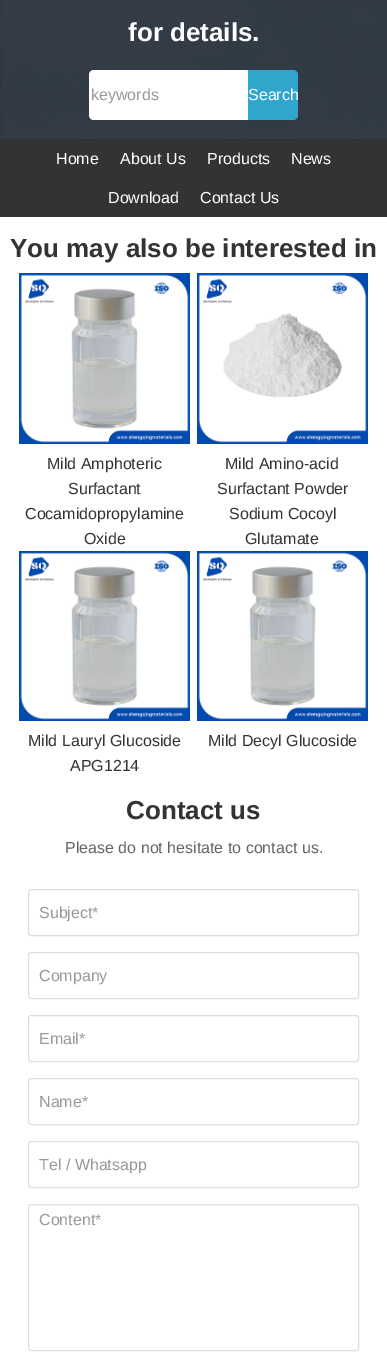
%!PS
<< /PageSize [387 1358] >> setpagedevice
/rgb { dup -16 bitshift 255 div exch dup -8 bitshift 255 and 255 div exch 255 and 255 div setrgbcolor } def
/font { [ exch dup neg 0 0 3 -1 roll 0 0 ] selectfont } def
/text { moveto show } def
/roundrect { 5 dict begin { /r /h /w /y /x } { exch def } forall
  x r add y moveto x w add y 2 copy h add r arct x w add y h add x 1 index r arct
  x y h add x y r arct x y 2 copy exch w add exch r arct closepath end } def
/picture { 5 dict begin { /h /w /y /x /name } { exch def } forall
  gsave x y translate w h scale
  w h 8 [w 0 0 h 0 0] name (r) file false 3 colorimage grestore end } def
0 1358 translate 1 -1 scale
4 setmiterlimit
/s1 { /LiberationSans-Bold 26 font 16#FFFFFF rgb } def
/s2 { /LiberationSans-Regular 16 font 16#999999 rgb } def
/s3 { /LiberationSans-Regular 16 font 16#FFFFFF rgb } def
/s4 { /LiberationSans-Bold 26 font 16#333333 rgb } def
/s5 { /LiberationSans-Regular 16 font 16#333333 rgb } def
/s6 { /LiberationSans-Regular 16 font 16#666666 rgb } def
16#FFFFFF rgb
0 0 387 1358 rectfill
(pic1.raw) 0 0 387 139 picture
s1
(for details.) 128 41 text
94 70 moveto 248 70 lineto 248 120 lineto 94 120 lineto 91 120 89 118 89 115 curveto 89 75 lineto 89 72 91 70 94 70 curveto closepath fill
s2
(keywords) 91 100 text
16#31A6CC rgb
248 70 moveto 293 70 lineto 296 70 298 72 298 75 curveto 298 115 lineto 298 118 296 120 293 120 curveto 248 120 lineto closepath fill
s3
(Search) 248 100 text
16#333333 rgb
0 139 387 78 rectfill
s3
(Home) 56 164 text
(About Us) 120 164 text
(Products) 207 164 text
(News) 291 164 text
(Download) 108 203 text
(Contact Us) 200 203 text
s4
(You may also be interested in) 10 257 text
(pic2.raw) 19 273 171 171 picture
s5
(Mild Amphoteric) 47 469 text
(Surfactant) 68 494 text
(Cocamidopropylamine) 25 519 text
(Oxide) 84 544 text
(pic3.raw) 197 273 171 171 picture
(Mild Amino-acid) 225 469 text
(Surfactant Powder) 217 494 text
(Sodium Cocoyl) 229 519 text
(Glutamate) 245 544 text
(pic4.raw) 19 551 171 170 picture
(Mild Lauryl Glucoside) 28 746 text
(APG1214) 70 771 text
(pic4.raw) 197 551 171 170 picture
(Mild Decyl Glucoside) 208 746 text
s4
(Contact us) 126 819 text
s6
(Please do not hesitate to contact us.) 65 853 text
16#DEDEDE rgb
28.5 889.5 330 46 2.5 roundrect stroke
s2
(Subject*) 39 918 text
16#DEDEDE rgb
28.5 952.5 330 46 2.5 roundrect stroke
s2
(Company) 39 981 text
16#DEDEDE rgb
28.5 1015.5 330 46 2.5 roundrect stroke
s2
(Email*) 39 1044 text
16#DEDEDE rgb
28.5 1078.5 330 46 2.5 roundrect stroke
s2
(Name*) 39 1107 text
16#DEDEDE rgb
28.5 1141.5 330 46 2.5 roundrect stroke
s2
(Tel / Whatsapp) 39 1170 text
16#DEDEDE rgb
28.5 1204.5 330 146 2.5 roundrect stroke
s2
(Content*) 39 1225 text
showpage
